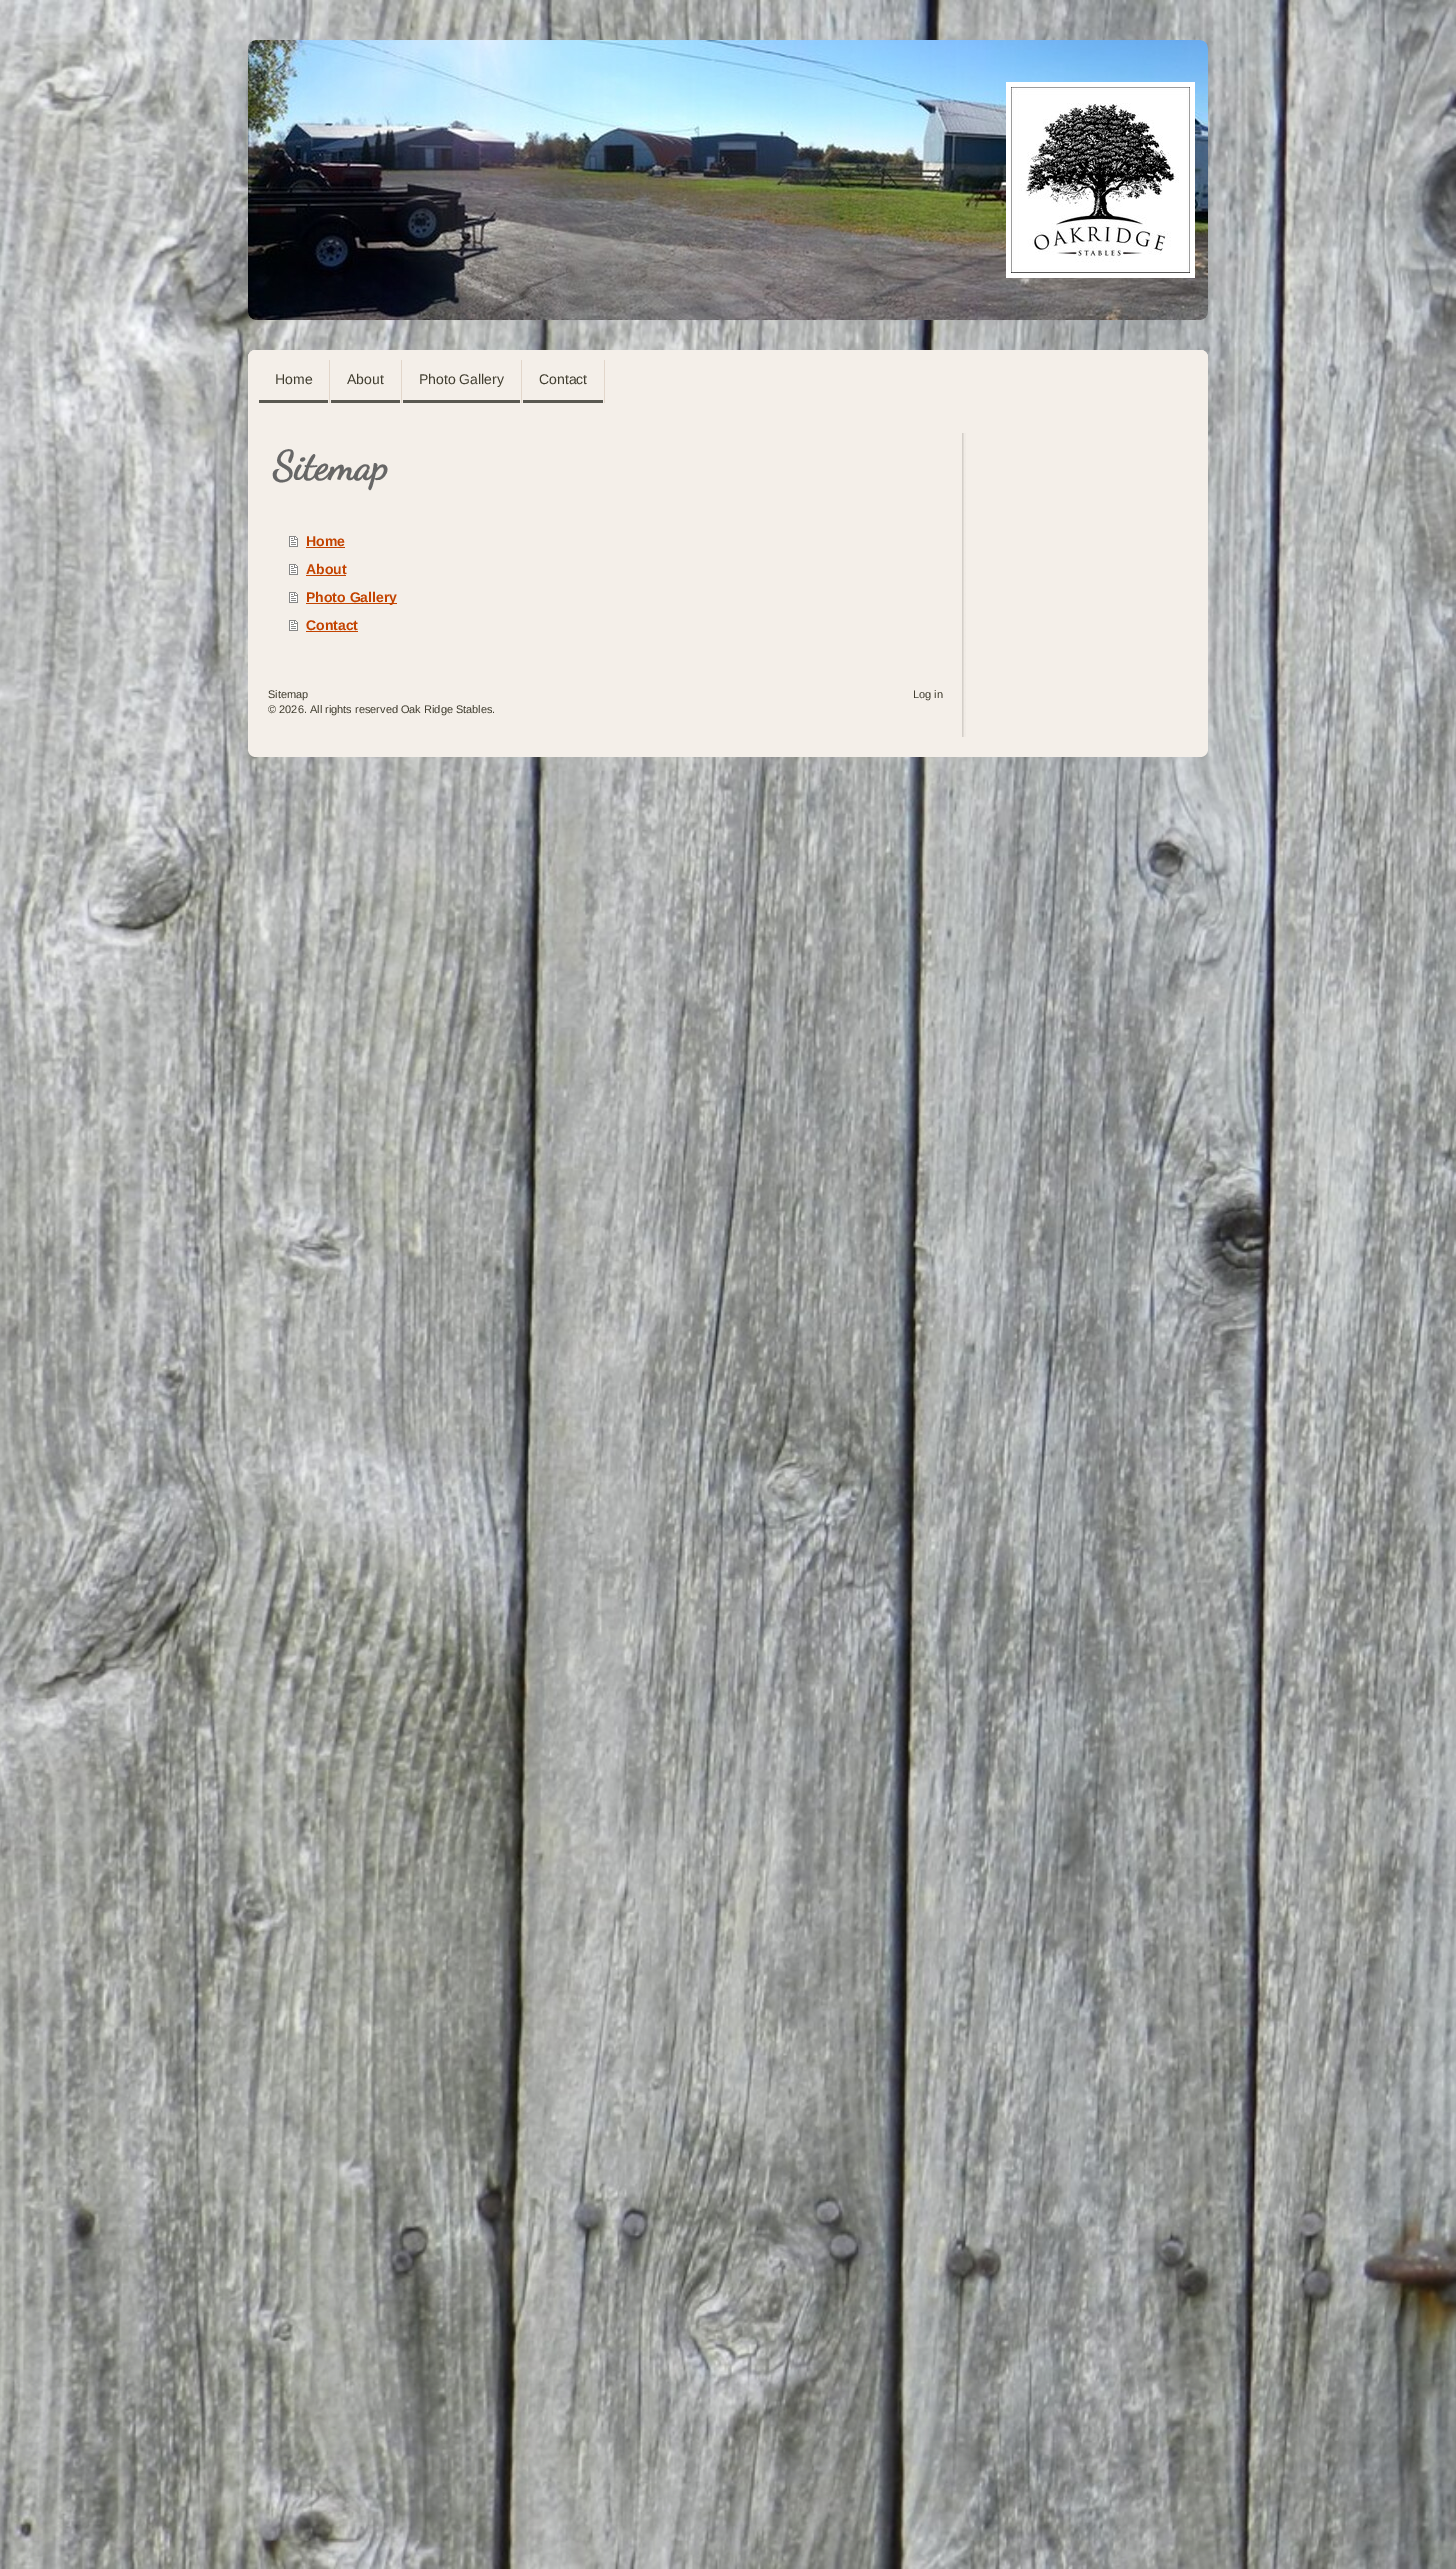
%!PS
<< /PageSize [1456 2569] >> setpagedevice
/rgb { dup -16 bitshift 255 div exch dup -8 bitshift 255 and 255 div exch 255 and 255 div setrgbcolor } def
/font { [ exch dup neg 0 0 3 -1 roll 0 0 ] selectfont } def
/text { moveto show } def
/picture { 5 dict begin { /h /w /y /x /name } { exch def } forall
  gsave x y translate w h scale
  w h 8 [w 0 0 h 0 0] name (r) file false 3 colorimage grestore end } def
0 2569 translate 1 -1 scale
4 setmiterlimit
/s1 { /LiberationSans-Regular 14 font 16#403D2F rgb } def
/s2 { /DancingScript-Bold 40 font 16#666666 rgb } def
/s3 { /LiberationSans-Bold 14 font 16#C34300 rgb } def
/s4 { /LiberationSans-Regular 11 font 16#403D2F rgb } def
16#FFFFFF rgb
0 0 1456 2569 rectfill
(pic1.raw) 0 0 1456 2569 picture
(pic2.raw) 248 40 960 280 picture
1006 82 189 196 rectfill
(pic3.raw) 1011 87 179 186 picture
16#F4EFE9 rgb
256 350 moveto 1200 350 lineto 1204.5 350 1208 353.5 1208 358 curveto 1208 413 lineto 248 413 lineto 248 358 lineto 248 353.5 251.5 350 256 350 curveto closepath fill
256 350 moveto 1200 350 lineto 1204.5 350 1208 353.5 1208 358 curveto 1208 360 lineto 248 360 lineto 248 358 lineto 248 353.5 251.5 350 256 350 curveto closepath fill
1198 350 moveto 1200 350 lineto 1204.5 350 1208 353.5 1208 358 curveto 1208 413 lineto 1198 413 lineto closepath fill
256 350 moveto 258 350 lineto 258 413 lineto 248 413 lineto 248 358 lineto 248 353.5 251.5 350 256 350 curveto closepath fill
16#E2D6CA rgb
329 360 1 43 rectfill
16#595850 rgb
259 400 69 3 rectfill
s1
(Home) 275 384 text
16#E2D6CA rgb
401 360 1 43 rectfill
16#595850 rgb
331 400 69 3 rectfill
s1
(About) 347 384 text
16#E2D6CA rgb
521 360 1 43 rectfill
16#595850 rgb
403 400 117 3 rectfill
s1
(Photo Gallery) 419 384 text
16#E2D6CA rgb
604 360 1 43 rectfill
16#595850 rgb
523 400 80 3 rectfill
s1
(Contact) 539 384 text
16#F4EFE9 rgb
248 413 moveto 1208 413 lineto 1208 749 lineto 1208 753.5 1204.5 757 1200 757 curveto 256 757 lineto 251.5 757 248 753.5 248 749 curveto closepath fill
(pic4.raw) 962 433 4 304 picture
s2
(Sitemap) 273 479 text
(pic5.raw) 289 536 9 11 picture
s3
(Home) 306 546 text
306 547 39 1 rectfill
(pic5.raw) 289 564 9 11 picture
(About) 306 574 text
306 575 40 1 rectfill
(pic5.raw) 289 592 9 11 picture
306 603 91 1 rectfill
(Photo Gallery) 306 602 text
(pic5.raw) 289 620 9 11 picture
(Contact) 306 630 text
306 631 52 1 rectfill
s4
(Sitemap) 268 698 text
(© 2026. All rights reserved Oak Ridge Stables.) 268 713 text
(Log in) 913 698 text
showpage
